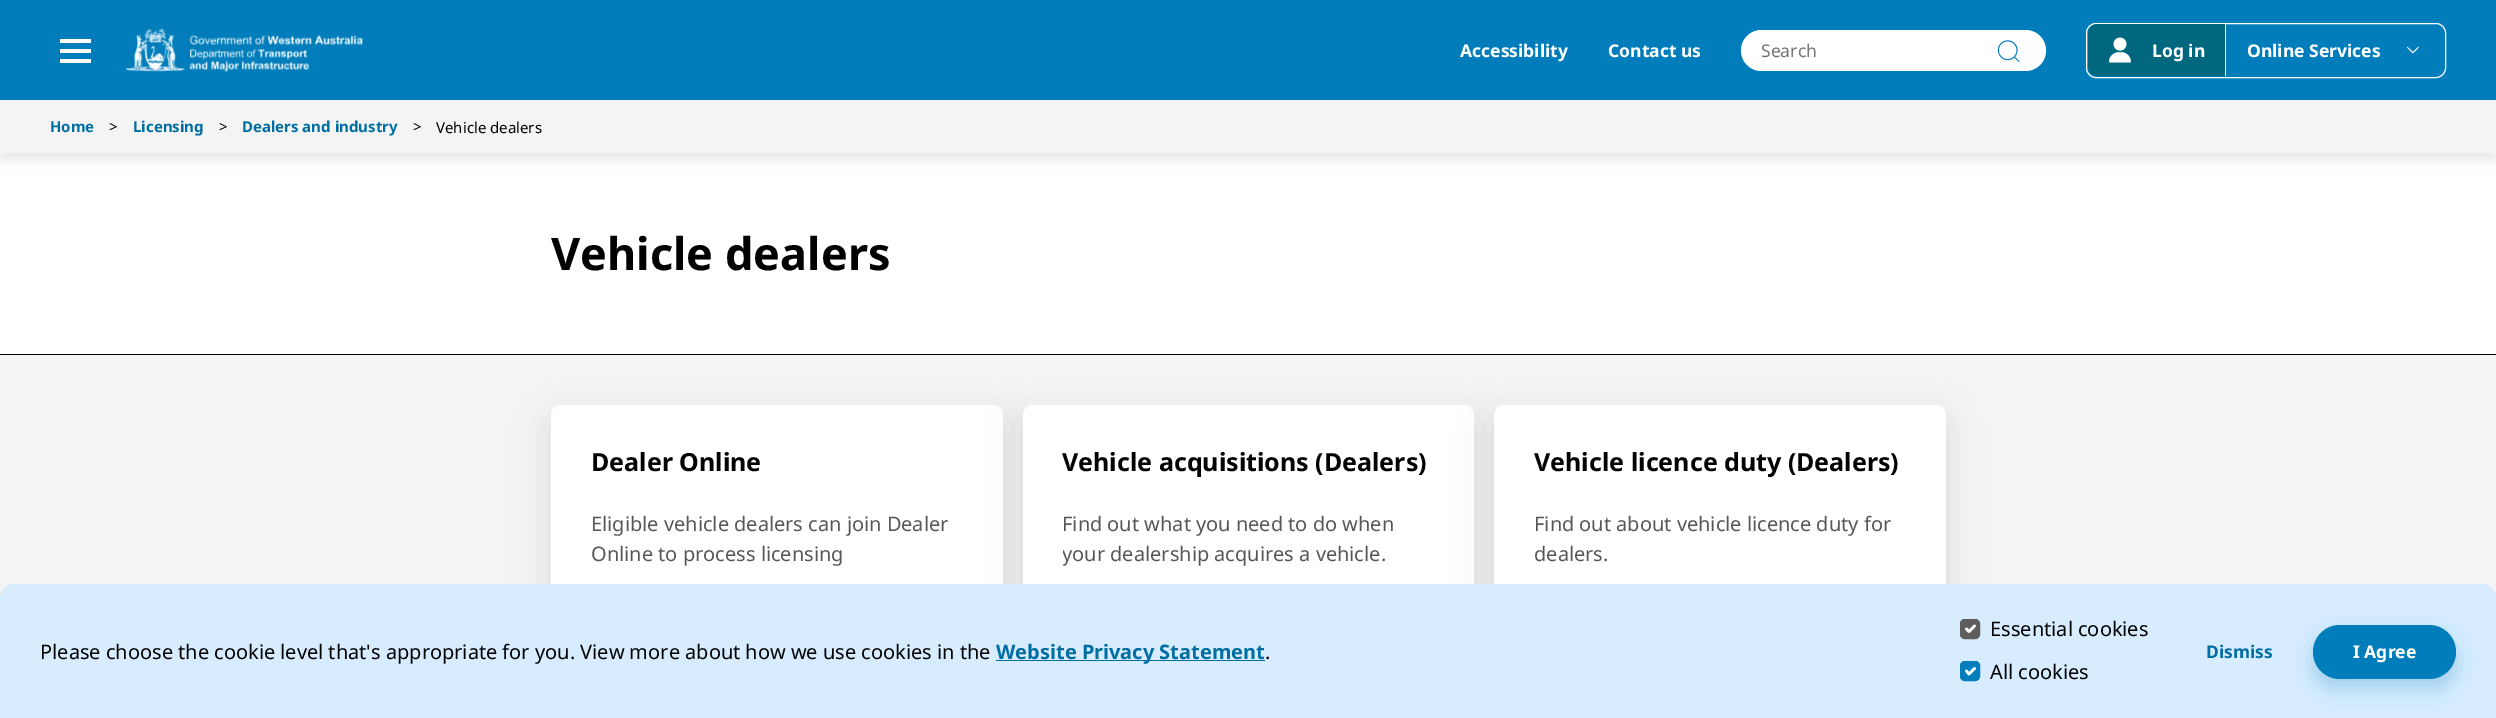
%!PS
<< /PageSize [2496 718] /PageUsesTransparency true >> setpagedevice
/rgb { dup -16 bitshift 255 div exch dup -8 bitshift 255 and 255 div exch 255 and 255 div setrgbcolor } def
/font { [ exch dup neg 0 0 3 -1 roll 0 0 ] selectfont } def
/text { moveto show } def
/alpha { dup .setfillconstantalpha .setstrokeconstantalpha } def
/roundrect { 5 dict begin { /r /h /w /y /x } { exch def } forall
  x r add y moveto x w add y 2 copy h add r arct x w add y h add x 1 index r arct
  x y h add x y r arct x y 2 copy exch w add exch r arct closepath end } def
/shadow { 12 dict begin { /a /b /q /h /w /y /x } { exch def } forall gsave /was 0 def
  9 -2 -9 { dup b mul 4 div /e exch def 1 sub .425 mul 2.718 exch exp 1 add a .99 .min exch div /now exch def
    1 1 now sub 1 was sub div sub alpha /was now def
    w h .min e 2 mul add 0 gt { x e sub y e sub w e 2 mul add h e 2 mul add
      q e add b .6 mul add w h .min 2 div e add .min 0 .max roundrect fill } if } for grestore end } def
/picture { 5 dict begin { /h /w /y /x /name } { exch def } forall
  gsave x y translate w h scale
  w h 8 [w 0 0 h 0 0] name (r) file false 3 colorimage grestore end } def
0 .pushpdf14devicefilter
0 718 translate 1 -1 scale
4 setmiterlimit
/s1 { /NotoSans-Bold 17.5 font 16#FFFFFF rgb } def
/s2 { /NotoSans-Regular 17.5 font 16#757575 rgb } def
/s3 { /NotoSans-Bold 15 font 16#006EA3 rgb } def
/s4 { /NotoSans-Regular 15 font 16#010101 rgb } def
/s5 { /NotoSans-Bold 45 font 16#010101 rgb } def
/s6 { /NotoSans-Bold 25 font 16#010101 rgb } def
/s7 { /NotoSans-Regular 20 font 16#575757 rgb } def
/s8 { /NotoSans-Regular 20 font 16#010101 rgb } def
/s9 { /NotoSans-Bold 20 font 16#006EA3 rgb } def
/s10 { /NotoSans-Bold 17.5 font 16#006EA3 rgb } def
16#F4F4F4 rgb
0 0 2496 718 rectfill
16#FFFFFF rgb
0 153 2496 201 rectfill
16#000000 rgb
0 106 2496 53 0 6 0.1 shadow
16#007DBA rgb
0 0 2496 100 rectfill
16#FFFFFF rgb
60 39 31 4 rectfill
60 49 31 4 rectfill
60 59 31 4 rectfill
(pic1.raw) 126 28 237 44 picture
s1
(Accessibility) 1460 57 text
(Contact us) 1608 57 text
1741 30 305 41 20.5 roundrect fill
s2
(Search) 1761 57 text
(pic2.raw) 1997 40 23 23 picture
16#FFFFFF rgb
2086.5 23.5 359 54 9.5 roundrect stroke
16#00677F rgb
2098 24 moveto 2226 24 lineto 2226 76 lineto 2098 76 lineto 2092.5 76 2088 71.5 2088 66 curveto 2088 34 lineto 2088 28.5 2092.5 24 2098 24 curveto closepath fill
16#FFFFFF rgb
2225 24 1 52 rectfill
(pic3.raw) 2109 37 22 26 picture
s1
(Log in) 2152 57 text
(Online Services) 2247 57 text
(pic4.raw) 2406 46 13 8 picture
16#F4F4F4 rgb
0 100 2496 53 rectfill
s3
(Home) 50 132 text
s4
(>) 109 132 text
s3
(Licensing) 133 132 text
s4
(>) 219 132 text
s3
(Dealers and industry) 242 132 text
s4
(>) 413 132 text
(Vehicle dealers) 436 133 text
0 354 2496 1 rectfill
s5
(Vehicle dealers) 551 270 text
16#000000 rgb
551 418 452 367 10 19 0.1 shadow
16#FFFFFF rgb
551 405 452 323 10 roundrect fill
s6
(Dealer Online) 591 471 text
s7
(Eligible vehicle dealers can join Dealer) 591 531 text
(Online to process licensing) 591 561 text
16#000000 rgb
1023 418 451 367 10 19 0.1 shadow
16#FFFFFF rgb
1023 405 451 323 10 roundrect fill
s6
(Vehicle acquisitions \(Dealers\)) 1062 471 text
s7
(Find out what you need to do when) 1062 531 text
gsave
1063 509 371 60 rectclip
(your dealership acquires a vehicle.) 1062 561 text
grestore
16#000000 rgb
1494 418 452 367 10 19 0.1 shadow
16#FFFFFF rgb
1494 405 452 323 10 roundrect fill
s6
(Vehicle licence duty \(Dealers\)) 1534 471 text
s7
(Find out about vehicle licence duty for) 1534 531 text
(dealers.) 1534 561 text
16#D7ECFF rgb
15 584 moveto 2481 584 lineto 2489.5 584 2496 590.5 2496 599 curveto 2496 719 lineto 0 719 lineto 0 599 lineto 0 590.5 6.5 584 15 584 curveto closepath fill
s8
(Please choose the cookie level that's appropriate for you. View more about how we use cookies in the) 40 659 text
16#006EA3 rgb
996 660 269 1 rectfill
s9
(Website Privacy Statement) 996 659 text
s8
(.) 1265 659 text
16#5D5D5D rgb
1960 619 20 20 5 roundrect fill
16#FFFFFF rgb
2.6 setlinewidth
1 setlinecap
1 setlinejoin
1966.5 629 moveto 1969 631.5 lineto 1974.5 626 lineto stroke
16#5D5D5D rgb
1 setlinewidth
0 setlinecap
0 setlinejoin
1960.5 619.5 19 19 4.5 roundrect stroke
s8
(Essential cookies) 1990 636 text
16#007DBA rgb
1960 661 20 20 5 roundrect fill
16#FFFFFF rgb
2.6 setlinewidth
1 setlinecap
1 setlinejoin
1966.5 671 moveto 1969 674 lineto 1974.5 668.5 lineto stroke
16#007DBA rgb
1 setlinewidth
0 setlinecap
0 setlinejoin
1960.5 661.5 19 19 4.5 roundrect stroke
s8
(All cookies) 1990 679 text
s10
(Dismiss) 2206 658 text
16#007DBA rgb
2313 635 143 54 27 10 0.25 shadow
2313 625 143 54 27 roundrect fill
s1
(I Agree) 2353 658 text
.poppdf14devicefilter showpage
